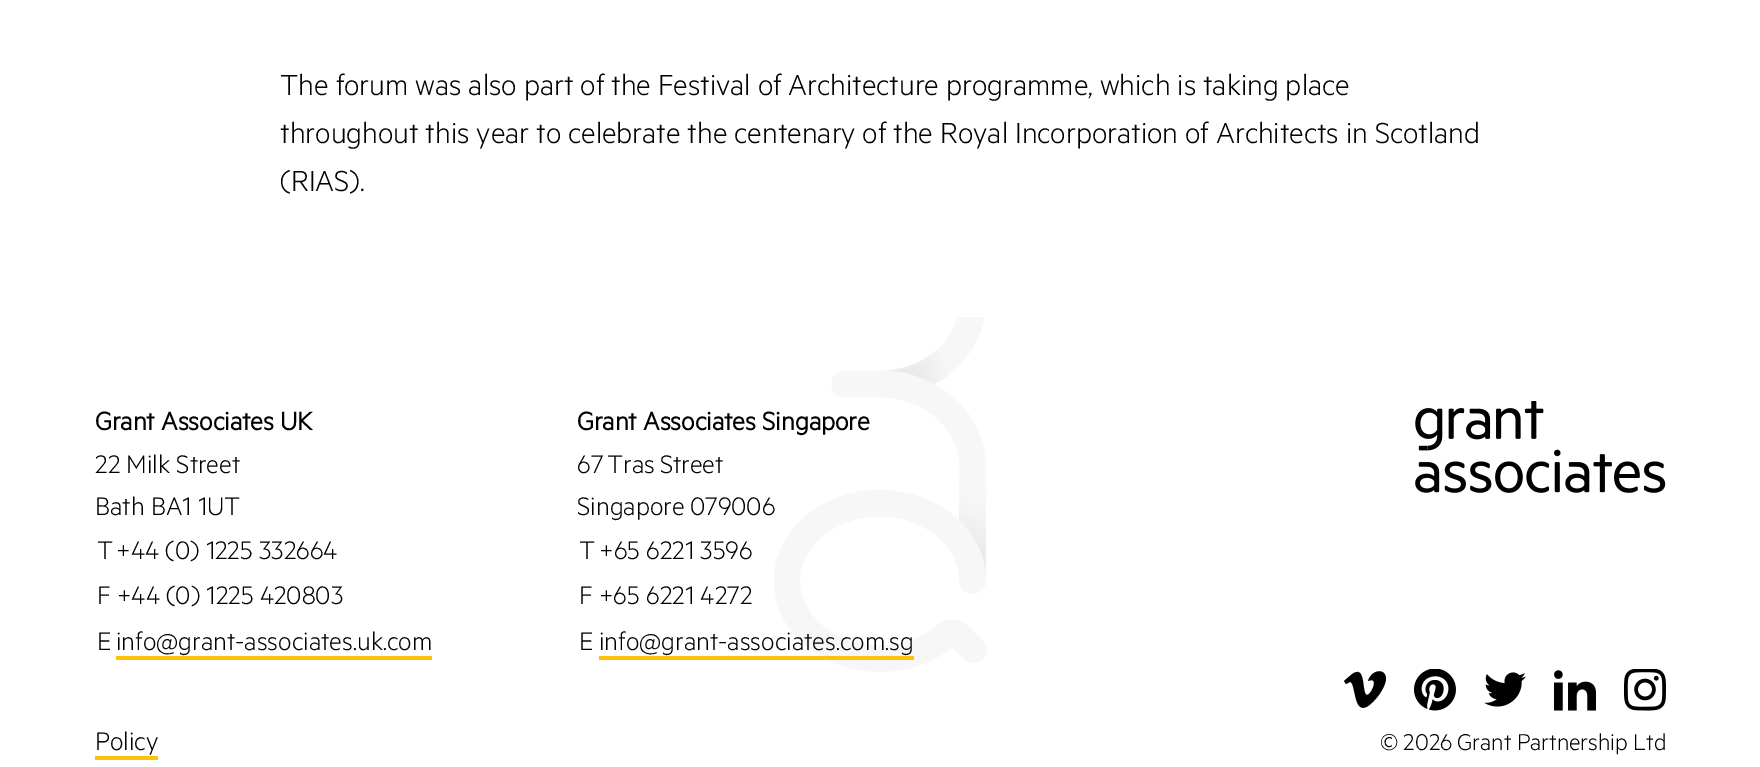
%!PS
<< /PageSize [1760 767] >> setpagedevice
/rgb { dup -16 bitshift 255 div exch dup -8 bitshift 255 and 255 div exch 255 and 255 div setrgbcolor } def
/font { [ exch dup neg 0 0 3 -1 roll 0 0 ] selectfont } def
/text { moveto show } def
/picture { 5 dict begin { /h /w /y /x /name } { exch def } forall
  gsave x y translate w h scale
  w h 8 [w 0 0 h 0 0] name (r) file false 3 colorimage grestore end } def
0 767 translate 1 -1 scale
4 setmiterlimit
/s1 { /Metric-Light 32.65 font 16#000000 rgb } def
/s2 { /Metric-Bold 28.5 font 16#000000 rgb } def
/s3 { /Metric-Light 28.5 font 16#000000 rgb } def
16#FFFFFF rgb
0 0 1760 767 rectfill
/Metric-Light 32.65 font
16#000000 rgb
280 95 moveto -0.25 0 32 (The forum was also part of the Festival of Architecture programme, which is taking place) widthshow
280 143 moveto -0.25 0 32 (throughout this year to celebrate the centenary of the Royal Incorporation of Architects in Scotland) widthshow
(\(RIAS\).) 280 191 text
(pic1.raw) 774 317 213 355 picture
s2
(Grant Associates UK) 95 430 text
s3
(22 Milk Street) 95 473 text
(Bath BA1 1UT) 95 515 text
(T) 97 559 text
(+44 \(0\) 1225 332664) 116 559 text
(F +44 \(0\) 1225 420803) 97 604 text
(E) 97 650 text
(info@grant-associates.uk.com) 116 650 text
16#FFC20C rgb
116 656 316 4 rectfill
s2
(Grant Associates Singapore) 577 430 text
/Metric-Light 28.5 font
577 473 moveto -2 0 32 (67 Tras Street) widthshow
577 515 moveto -1 0 32 (Singapore 079006) widthshow
(T) 579 559 text
(+65 6221 3596) 599 559 text
(F +65 6221 4272) 579 604 text
(E) 579 650 text
(info@grant-associates.com.sg) 599 650 text
16#FFC20C rgb
599 656 315 4 rectfill
s3
(Policy) 95 750 text
16#FFC20C rgb
95 756 63 4 rectfill
(pic2.raw) 1415 401 251 92 picture
16#000000 rgb
1384 686 moveto 1381 693 1375 701 1368 706 curveto 1353 716 1356 682 1350 682 curveto 1346 684 lineto 1344 681 lineto 1351 675 lineto 1367 662 1361 694 1367 695 curveto 1371 695 1380 676 1368 681 curveto 1373 666 1392 669 1384 686 curveto closepath fill
(pic3.raw) 1414 669 42 42 picture
(pic4.raw) 1484 672 42 35 picture
(pic5.raw) 1554 670 42 41 picture
(pic6.raw) 1624 669 42 42 picture
/Metric-Light 25.75 font
1380 750 moveto -0.5 0 32 (© 2026 Grant Partnership Ltd) widthshow
showpage
